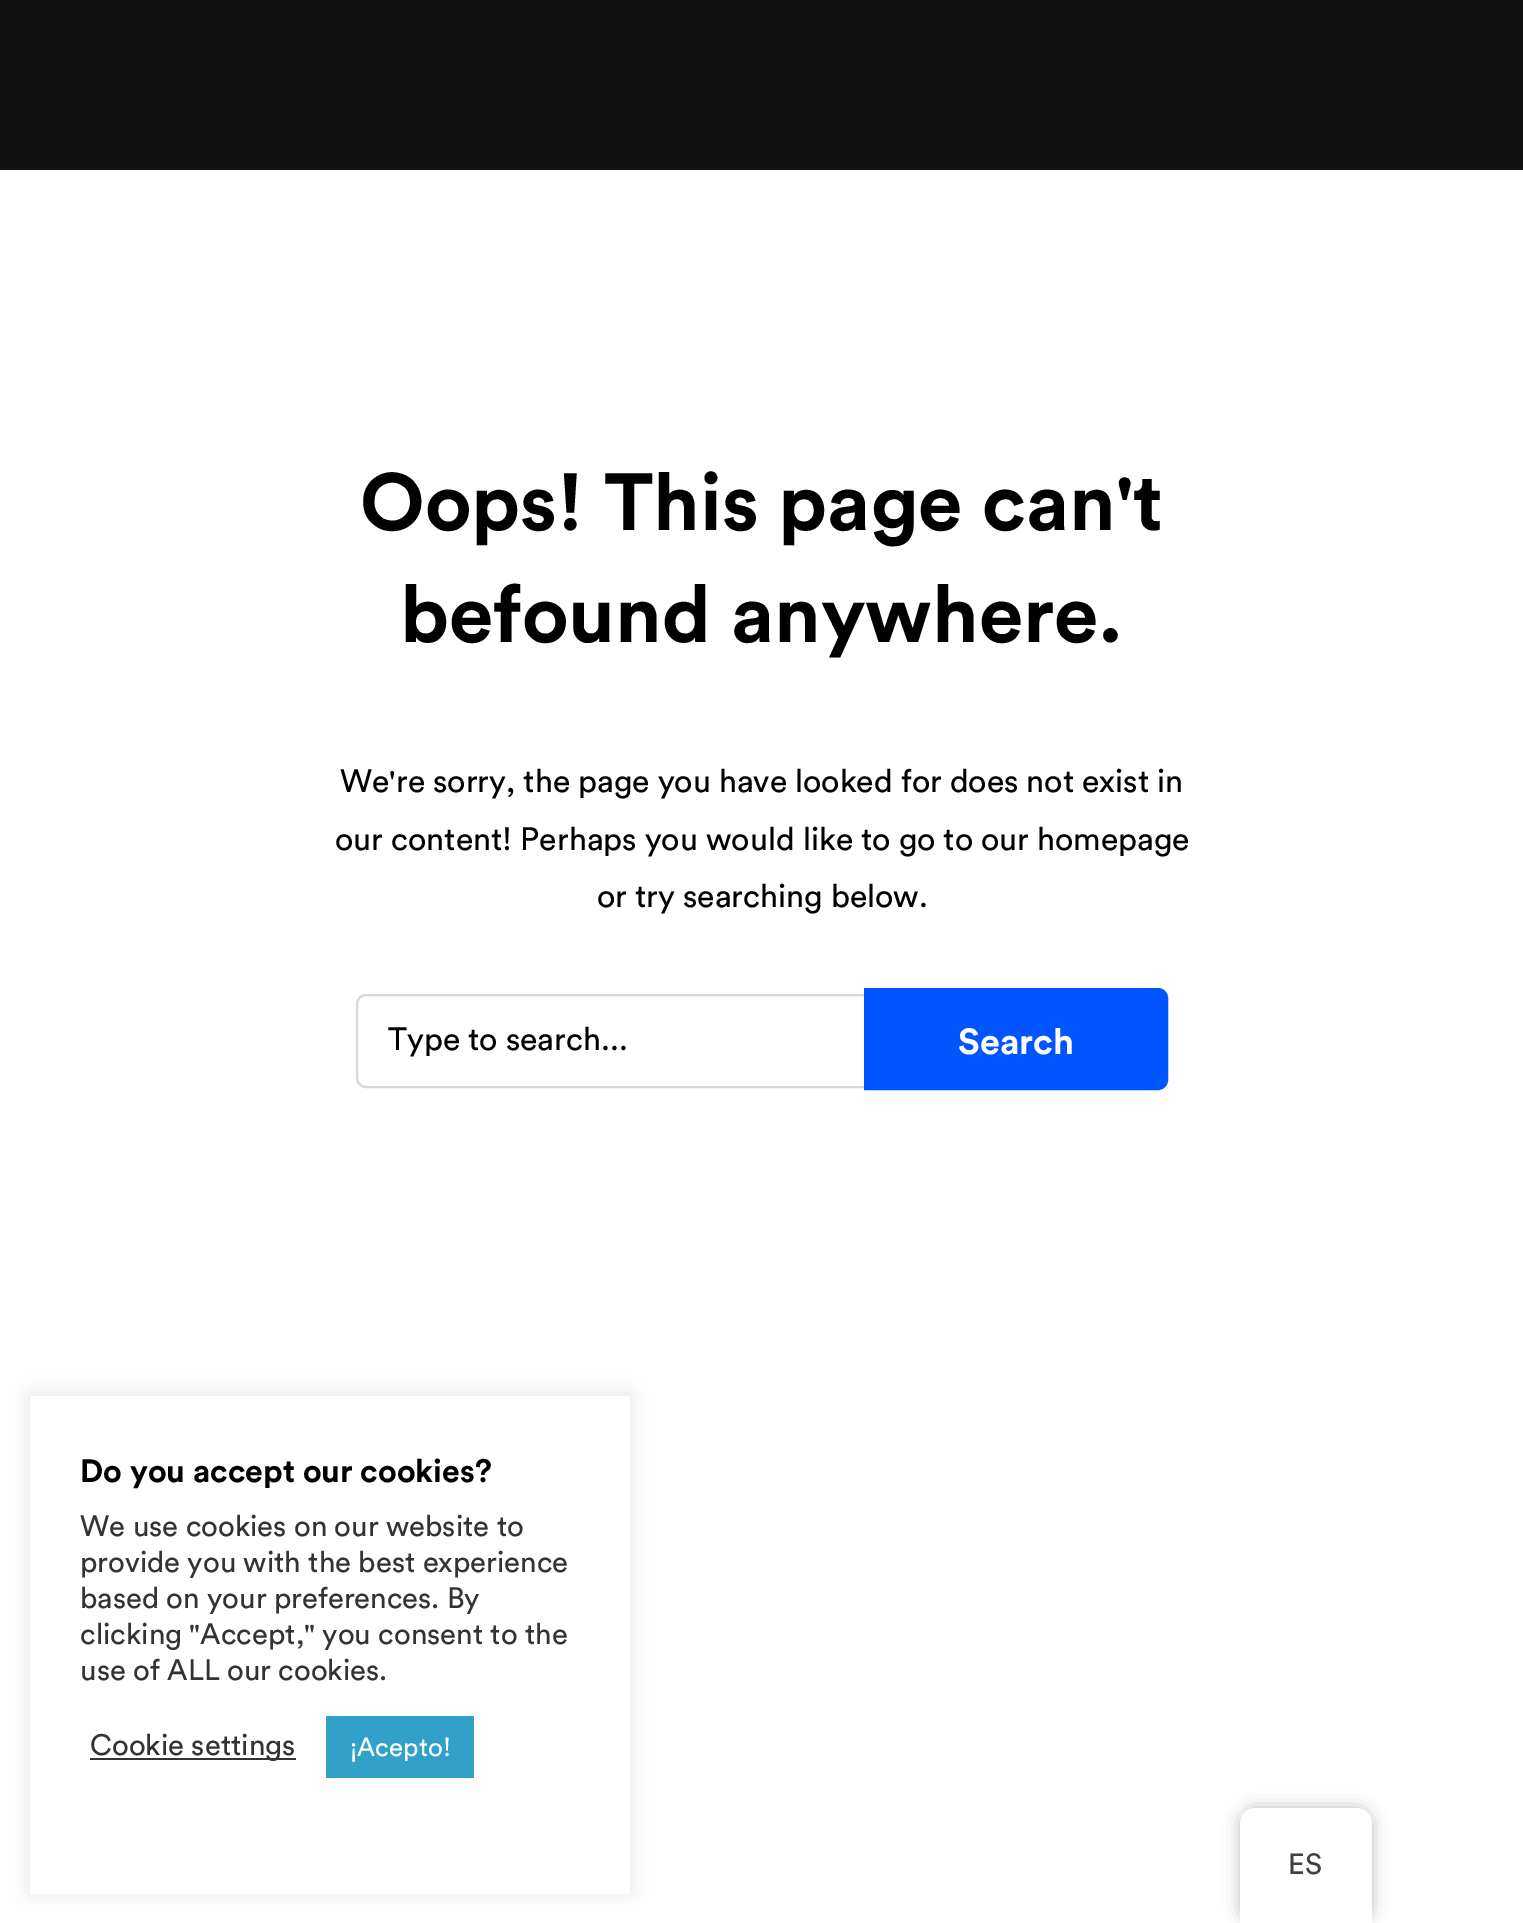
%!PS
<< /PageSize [1523 1923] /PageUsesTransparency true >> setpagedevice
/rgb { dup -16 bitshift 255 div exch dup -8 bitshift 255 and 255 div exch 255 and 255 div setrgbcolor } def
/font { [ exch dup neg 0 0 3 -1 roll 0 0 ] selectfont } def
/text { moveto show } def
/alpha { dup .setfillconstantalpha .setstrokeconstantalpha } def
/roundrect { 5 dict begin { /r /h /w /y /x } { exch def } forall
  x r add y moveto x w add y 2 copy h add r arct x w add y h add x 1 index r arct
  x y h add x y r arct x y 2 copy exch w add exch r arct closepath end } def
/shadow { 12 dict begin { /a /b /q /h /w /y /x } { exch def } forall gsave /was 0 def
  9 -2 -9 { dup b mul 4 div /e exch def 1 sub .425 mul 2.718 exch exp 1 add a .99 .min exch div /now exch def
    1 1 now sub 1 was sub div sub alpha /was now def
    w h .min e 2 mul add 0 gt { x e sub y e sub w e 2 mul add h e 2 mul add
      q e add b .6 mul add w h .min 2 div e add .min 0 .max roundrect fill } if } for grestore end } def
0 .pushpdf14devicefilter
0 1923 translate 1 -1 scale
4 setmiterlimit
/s1 { /Circular-Bold 80 font 16#000000 rgb } def
/s2 { /Circular-Regular 32 font 16#000000 rgb } def
/s3 { /Circular-Bold 36 font 16#FFFFFF rgb } def
/s4 { /Circular-Bold 32 font 16#000000 rgb } def
/s5 { /Circular-Regular 29.3 font 16#333333 rgb } def
/s6 { /Circular-Regular 26 font 16#FFFFFF rgb } def
/s7 { /Circular-Regular 29 font 16#404040 rgb } def
16#FFFFFF rgb
0 0 1523 1923 rectfill
16#111111 rgb
0 0 1523 170 rectfill
s1
(Oops! This page can't) 360 530 text
(befound anywhere.) 400 642 text
s2
(We're sorry, the page you have looked for does not exist in) 340 792 text
(our content! Perhaps you would like to go to our homepage) 335 850 text
(or try searching below.) 597 907 text
16#D8D8D8 rgb
2 setlinewidth
357 995 518 92 9 roundrect stroke
s2
(Type to search...) 388 1050 text
16#0055FF rgb
866 990 moveto 1158 990 lineto 1162.5 990 1166 993.5 1166 998 curveto 1166 1080 lineto 1166 1084.5 1162.5 1088 1158 1088 curveto 866 1088 lineto closepath gsave fill grestore
4 setlinewidth
stroke
s3
(Search) 958 1054 text
gsave
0 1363 moveto 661 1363 lineto 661 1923 lineto 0 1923 lineto closepath 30 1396 moveto 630 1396 lineto 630 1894 lineto 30 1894 lineto closepath eoclip newpath
16#ACABAB rgb
30 1394 600 498 0 10 0.3 shadow
grestore
s4
(Do you accept our cookies?) 80 1482 text
s5
(We use cookies on our website to) 80 1536 text
(provide you with the best experience) 80 1572 text
(based on your preferences. By) 80 1608 text
(clicking "Accept," you consent to the) 80 1644 text
(use of ALL our cookies.) 80 1680 text
90 1758 206 2 rectfill
(Cookie settings) 90 1755 text
16#32A1C9 rgb
326 1716 148 62 rectfill
s6
(¡Acepto!) 350 1756 text
16#000000 rgb
1240 1808 132 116 16 8 0.25 shadow
16#FFFFFF rgb
1256 1808 moveto 1356 1808 lineto 1365 1808 1372 1815 1372 1824 curveto 1372 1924 lineto 1240 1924 lineto 1240 1824 lineto 1240 1815 1247 1808 1256 1808 curveto closepath fill
s7
(ES) 1288 1874 text
.poppdf14devicefilter showpage
